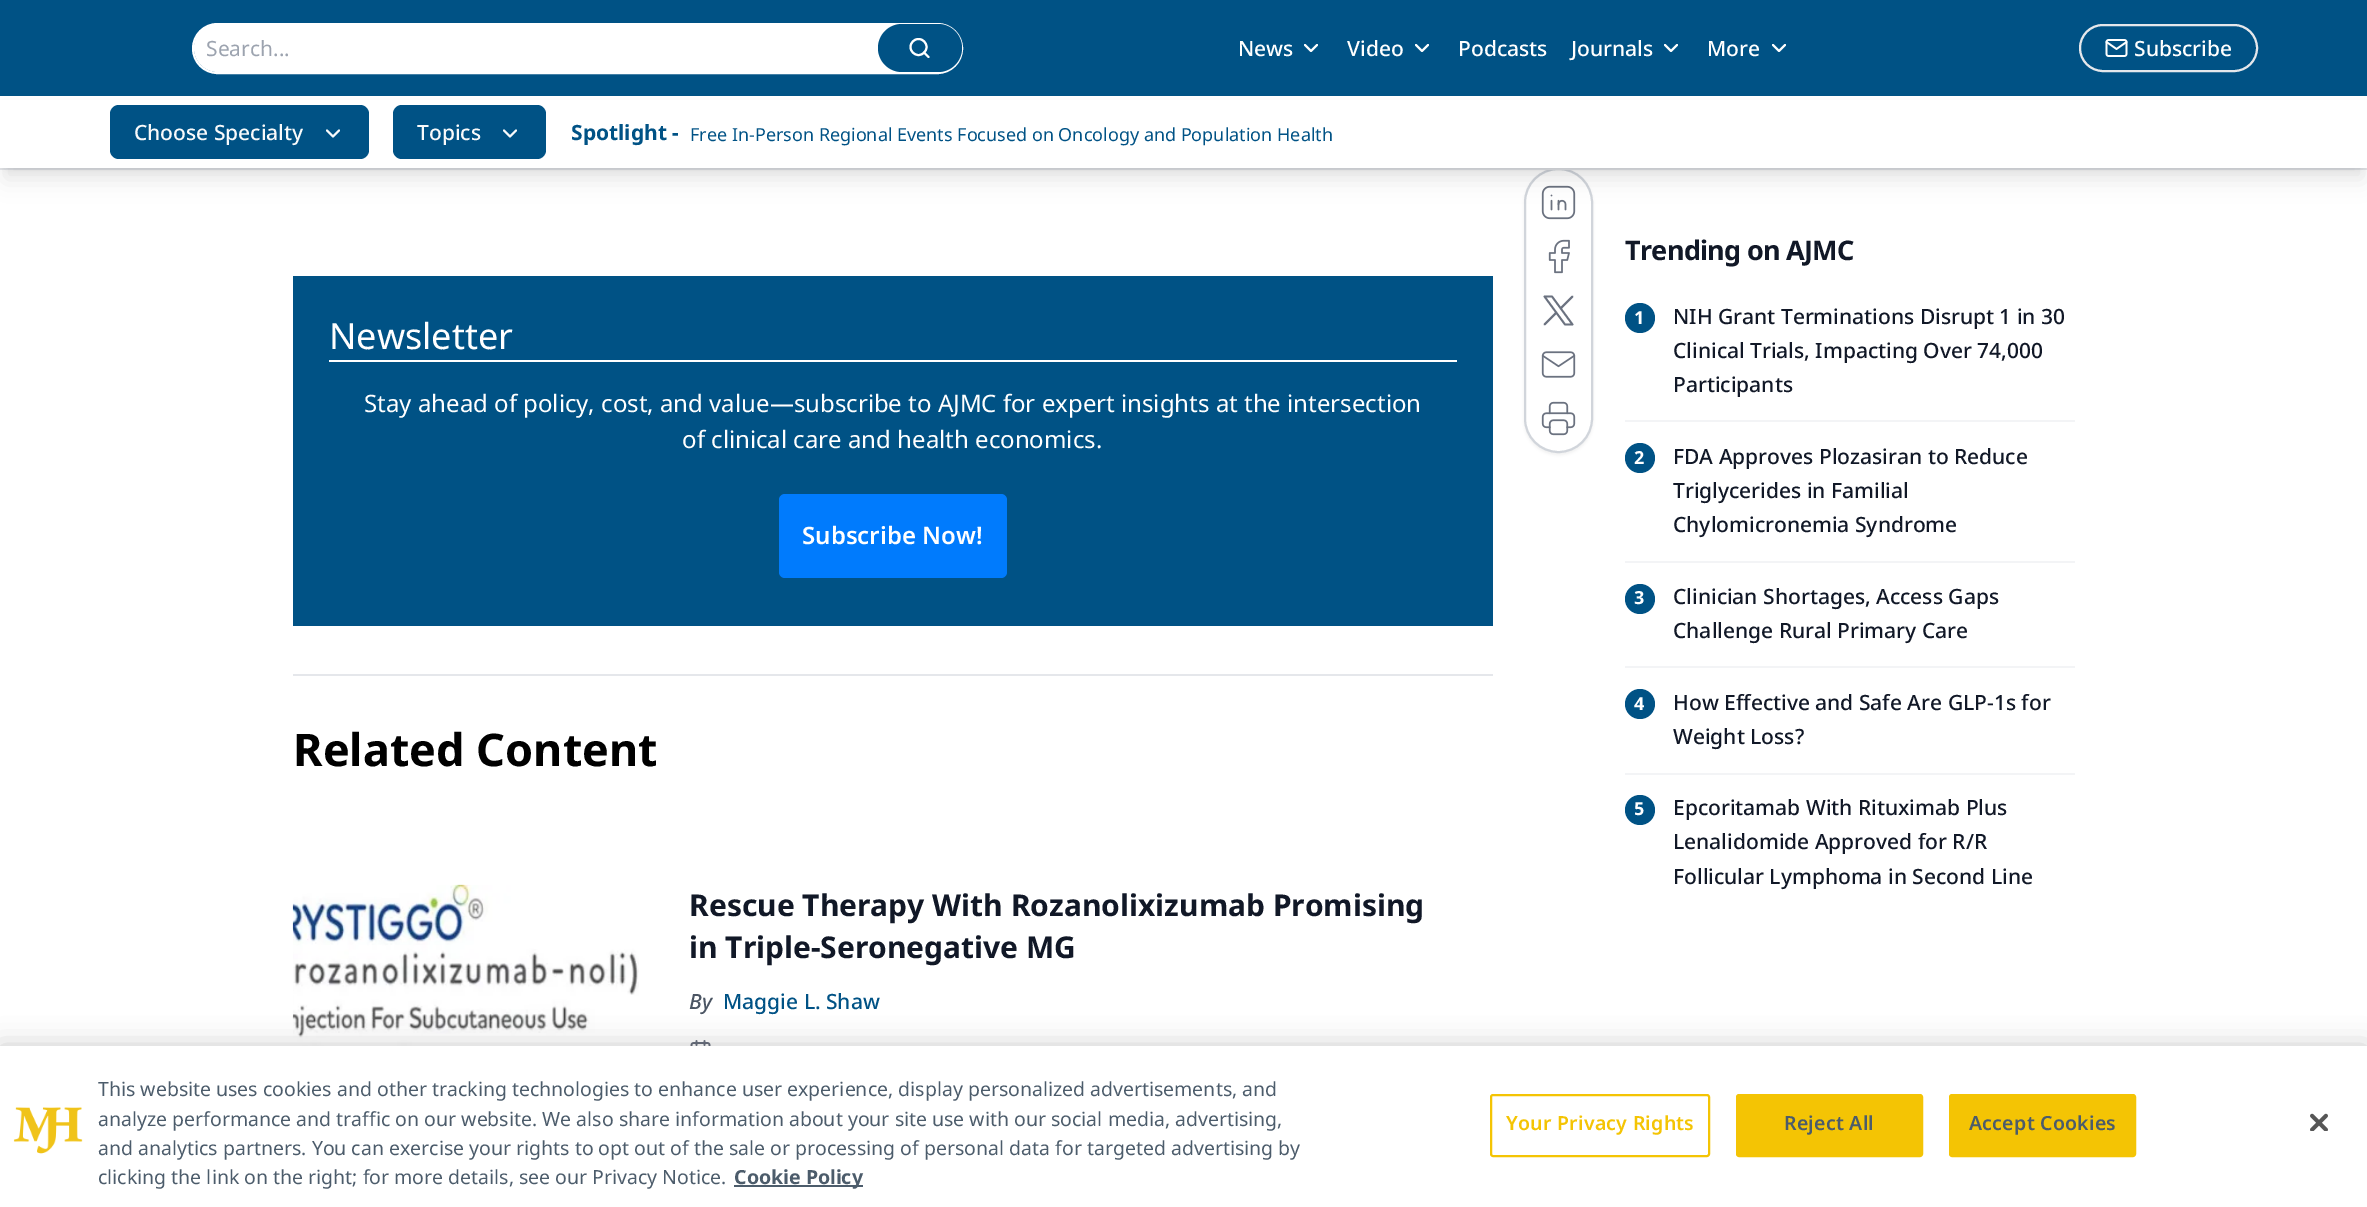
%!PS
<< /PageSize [2367 1207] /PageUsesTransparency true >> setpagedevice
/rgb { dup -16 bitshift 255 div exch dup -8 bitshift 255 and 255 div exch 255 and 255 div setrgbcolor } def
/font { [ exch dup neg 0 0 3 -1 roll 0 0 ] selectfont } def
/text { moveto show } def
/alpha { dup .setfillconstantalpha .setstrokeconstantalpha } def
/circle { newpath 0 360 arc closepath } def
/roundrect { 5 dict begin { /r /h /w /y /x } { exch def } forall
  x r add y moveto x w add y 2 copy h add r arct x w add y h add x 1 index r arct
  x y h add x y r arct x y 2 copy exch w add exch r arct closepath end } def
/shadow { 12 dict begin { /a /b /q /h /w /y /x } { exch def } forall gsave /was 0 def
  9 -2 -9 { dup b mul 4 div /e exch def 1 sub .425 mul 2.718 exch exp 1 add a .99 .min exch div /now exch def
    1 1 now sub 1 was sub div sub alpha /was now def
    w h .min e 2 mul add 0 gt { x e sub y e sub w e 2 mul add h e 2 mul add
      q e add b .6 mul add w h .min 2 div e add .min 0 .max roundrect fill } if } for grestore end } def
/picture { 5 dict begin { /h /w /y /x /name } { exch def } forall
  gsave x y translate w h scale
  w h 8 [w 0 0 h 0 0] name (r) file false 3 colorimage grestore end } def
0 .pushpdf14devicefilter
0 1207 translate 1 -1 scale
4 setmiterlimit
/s1 { /NotoSans-Regular 21 font 16#9CA3AF rgb } def
/s2 { /NotoSans-Medium 21 font 16#FFFFFF rgb } def
/s3 { /NotoSans-Medium 21 font 16#F9FAFB rgb } def
/s4 { /NotoSans-Bold 21 font 16#005285 rgb } def
/s5 { /NotoSans-Regular 18 font 16#005285 rgb } def
/s6 { /NotoSans-Regular 36 font 16#FFFFFF rgb } def
/s7 { /NotoSans-Regular 24 font 16#FFFFFF rgb } def
/s8 { /NotoSans-SemiBold 24 font 16#FFFFFF rgb } def
/s9 { /NotoSans-Bold 45 font 16#000000 rgb } def
/s10 { /NotoSans-Bold 30 font 16#111827 rgb } def
/s11 { /NotoSans-MediumItalic 21 font 16#4B5563 rgb } def
/s12 { /NotoSans-Medium 21 font 16#005285 rgb } def
/s13 { /NotoSans-Bold 18 font 16#FFFFFF rgb } def
/s14 { /NotoSans-Medium 21 font 16#111827 rgb } def
/s15 { /NotoSans-Regular 19.5 font 16#4C5C6B rgb } def
/s16 { /NotoSans-Bold 19.5 font 16#4C5C6B rgb } def
16#FFFFFF rgb
0 0 2367 1207 rectfill
16#005285 rgb
0 0 2367 96 rectfill
16#000000 rgb
1524 170 69 285 34.5 1.5 0.05 shadow
16#FFFFFF rgb
1525 169 67 283 33.5 roundrect gsave fill grestore
16#D1D5DB rgb
2 setlinewidth
stroke
16#E5E7EB rgb
0 168 2367 2 rectfill
16#FFFFFF rgb
193 24 769 49 24.5 roundrect stroke
194 24 768 48 24 roundrect fill
s1
(Search...) 206 56 text
16#005285 rgb
878 24 84 48 24 roundrect fill
16#FFFFFF rgb
918.5 47 8 circle stroke
1 setlinecap
1 setlinejoin
928.5 57 moveto 924 52.5 lineto stroke
s2
(News) 1238 56 text
1305 45 moveto 1311 51 lineto 1317 45 lineto stroke
(Video) 1347 56 text
1416 45 moveto 1422 51 lineto 1428 45 lineto stroke
(Podcasts) 1458 56 text
(Journals) 1571 56 text
1665 45 moveto 1671 51 lineto 1677 45 lineto stroke
(More) 1707 56 text
1773 45 moveto 1779 51 lineto 1785 45 lineto stroke
16#E5E7EB rgb
0 setlinecap
0 setlinejoin
2080 25 177 46 23 roundrect stroke
(pic1.raw) 2105 39 23 18 picture
s2
(Subscribe) 2134 56 text
16#000000 rgb
6 108 2355 60 0 4.5 0.1 shadow
(pic4.raw) 1541 185 35 35 picture
5 116 2358 63 0 11 0.1 shadow
16#FFFFFF rgb
0 100 2367 68 rectfill
16#005285 rgb
110 105 259 54 9 roundrect fill
s3
(Choose Specialty) 134 140 text
1 setlinecap
1 setlinejoin
327 130.5 moveto 333 136.5 lineto 339 130.5 lineto stroke
16#005285 rgb
393 105 153 54 9 roundrect fill
s3
(Topics) 417 140 text
504 130.5 moveto 510 136.5 lineto 516 130.5 lineto stroke
s4
(Spotlight -) 571 140 text
s5
(Free In-Person Regional Events Focused on Oncology and Population Health) 690 141 text
293 276 1200 350 rectfill
16#FFFFFF rgb
329 360 1128 2 rectfill
s6
(Newsletter) 329 349 text
s7
(Stay ahead of policy, cost, and value—subscribe to AJMC for expert insights at the intersection) 364 412 text
(of clinical care and health economics.) 682 448 text
16#007BFD rgb
779 494 228 84 6 roundrect fill
s8
(Subscribe Now!) 802 544 text
16#E5E7EB rgb
293 674 1200 2 rectfill
s9
(Related Content) 293 766 text
(pic2.raw) 292 884 347 162 picture
s10
(Rescue Therapy With Rozanolixizumab Promising) 689 916 text
(in Triple-Seronegative MG) 689 958 text
s11
(By) 689 1009 text
s12
(Maggie L. Shaw) 723 1009 text
(pic3.raw) 690 1040 21 6 picture
(pic5.raw) 1548 239 22 35 picture
16#6B7280 rgb
1.8 setlinewidth
1544.5 296.5 moveto 1565 324.5 lineto 1572.5 324.5 lineto 1552 296.5 lineto closepath 1544.5 324.5 moveto 1556.5 312.5 lineto 1560.5 308.5 moveto 1572.5 296.5 lineto stroke
(pic6.raw) 1541 351 35 27 picture
(pic7.raw) 1541 401 35 35 picture
/NotoSans-Bold 27 font
16#111827 rgb
1625 260 moveto -0.7 0 (Trending on AJMC) ashow
16#005285 rgb
1640 318 15 circle fill
s13
(1) 1634 324 text
s14
(NIH Grant Terminations Disrupt 1 in 30) 1673 324 text
(Clinical Trials, Impacting Over 74,000) 1673 358 text
(Participants) 1673 392 text
16#F3F4F6 rgb
1625 420 450 2 rectfill
16#005285 rgb
1640 458 15 circle fill
s13
(2) 1634 464 text
s14
(FDA Approves Plozasiran to Reduce) 1673 464 text
(Triglycerides in Familial) 1673 498 text
(Chylomicronemia Syndrome) 1673 532 text
16#F3F4F6 rgb
1625 561 450 2 rectfill
16#005285 rgb
1640 599 15 circle fill
s13
(3) 1634 604 text
s14
(Clinician Shortages, Access Gaps) 1673 604 text
(Challenge Rural Primary Care) 1673 638 text
16#F3F4F6 rgb
1625 666 450 2 rectfill
16#005285 rgb
1640 704 15 circle fill
s13
(4) 1634 710 text
s14
(How Effective and Safe Are GLP-1s for) 1673 710 text
(Weight Loss?) 1673 744 text
16#F3F4F6 rgb
1625 773 450 2 rectfill
16#005285 rgb
1640 810 15 circle fill
s13
(5) 1634 815 text
s14
(Epcoritamab With Rituximab Plus) 1673 815 text
(Lenalidomide Approved for R/R) 1673 849 text
(Follicular Lymphoma in Second Line) 1673 884 text
16#000000 rgb
0 1046 2367 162 0 13.5 0.2 shadow
16#FFFFFF rgb
0 1046 2367 161 rectfill
(pic8.raw) 13 1107 70 47 picture
s15
(This website uses cookies and other tracking technologies to enhance user experience, display personalized advertisements, and) 98 1096 text
(analyze performance and traffic on our website. We also share information about your site use with our social media, advertising,) 98 1126 text
(and analytics partners. You can exercise your rights to opt out of the sale or processing of personal data for targeted advertising by) 98 1155 text
(clicking the link on the right; for more details, see our Privacy Notice.) 98 1184 text
734 1185 129 2 rectfill
s16
(Cookie Policy) 734 1184 text
16#F4C404 rgb
2 setlinewidth
0 setlinecap
0 setlinejoin
1491 1095 218 61 2 roundrect stroke
/NotoSans-SemiBold 19.5 font
1506 1130 moveto 0.25 0 (Your Privacy Rights) ashow
1737 1095 185 61 2 roundrect gsave fill grestore
stroke
16#4C5C6B rgb
1784 1130 moveto 0.25 0 (Reject All) ashow
16#F4C404 rgb
1950 1095 185 61 2 roundrect gsave fill grestore
stroke
16#4C5C6B rgb
1969 1130 moveto 0.25 0 (Accept Cookies) ashow
(pic9.raw) 2310 1113 18 18 picture
.poppdf14devicefilter showpage
